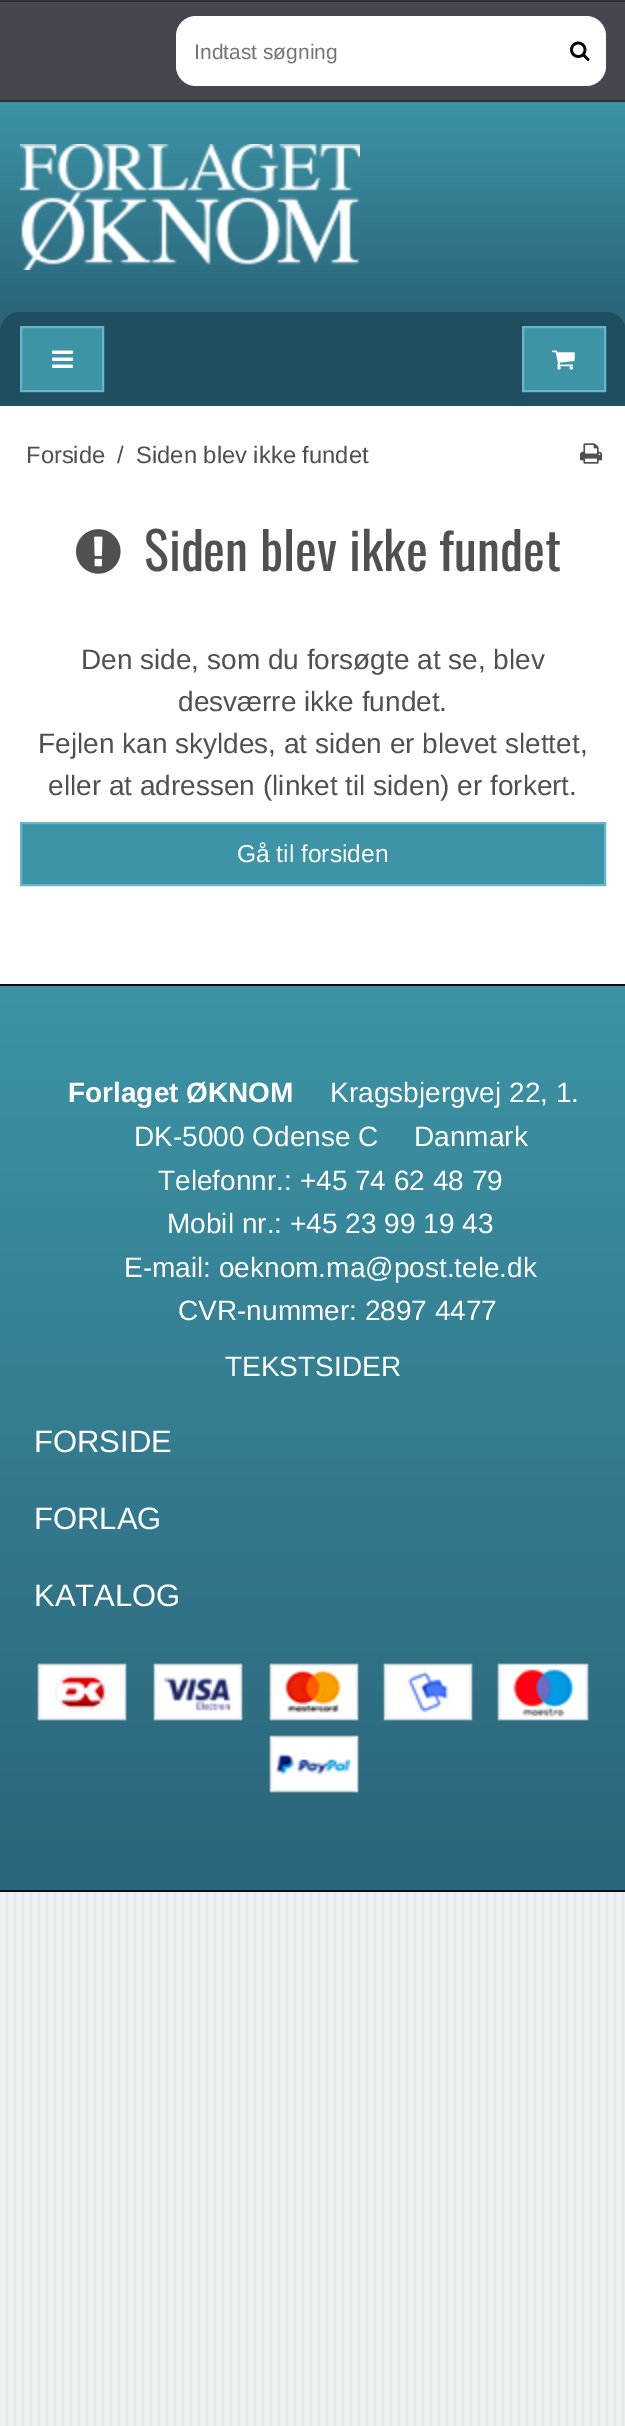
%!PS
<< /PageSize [625 2426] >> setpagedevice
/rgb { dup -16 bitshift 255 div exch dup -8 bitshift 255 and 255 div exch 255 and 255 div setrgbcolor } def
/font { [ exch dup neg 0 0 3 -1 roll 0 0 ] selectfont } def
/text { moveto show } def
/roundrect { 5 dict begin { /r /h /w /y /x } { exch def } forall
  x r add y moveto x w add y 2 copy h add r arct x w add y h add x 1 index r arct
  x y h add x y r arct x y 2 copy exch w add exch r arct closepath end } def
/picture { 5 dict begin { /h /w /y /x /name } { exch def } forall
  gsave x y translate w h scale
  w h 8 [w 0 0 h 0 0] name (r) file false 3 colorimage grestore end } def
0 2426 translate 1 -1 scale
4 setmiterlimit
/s1 { /LiberationSans-Regular 21 font 16#757575 rgb } def
/s2 { /LiberationSans-Regular 23.75 font 16#50504F rgb } def
/s3 { /Oswald-Regular 52 font 16#50504F rgb } def
/s4 { /LiberationSans-Regular 28 font 16#50504F rgb } def
/s5 { /LiberationSans-Regular 24.5 font 16#FFFFFF rgb } def
/s6 { /LiberationSans-Bold 28 font 16#FFFFFF rgb } def
/s7 { /LiberationSans-Regular 28 font 16#FFFFFF rgb } def
/s8 { /LiberationSans-Regular 31 font 16#FFFFFF rgb } def
16#FFFFFF rgb
0 0 625 2426 rectfill
(pic1.raw) 0 1892 625 534 picture
16#47464E rgb
0 2 625 98 rectfill
16#2F2E33 rgb
0 0 625 2 rectfill
0 100 625 2 rectfill
16#FFFFFF rgb
176 16 430 70 20 roundrect fill
s1
(Indtast søgning) 194 59 text
(pic2.raw) 570 41 20 20 picture
gsave 0 102 moveto 625 102 lineto 625 312 lineto 0 312 lineto closepath clip newpath
<< /ShadingType 2 /ColorSpace /DeviceRGB /Coords [313 102 313 312] /Extend [true true] /Function << /FunctionType 2 /Domain [0 1] /C0 [0.235 0.58 0.651] /C1 [0.169 0.396 0.478] /N 1 >> >> shfill grestore
(pic3.raw) 20 144 340 126 picture
16#2B657A rgb
0 312 625 20 rectfill
16#1E4E60 rgb
20 312 moveto 606 312 lineto 617 312 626 321 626 332 curveto 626 406 lineto 0 406 lineto 0 332 lineto 0 321 9 312 20 312 curveto closepath fill
16#3C94A6 rgb
21 327 moveto 103 327 lineto 103 391 lineto 21 391 lineto closepath gsave fill grestore
16#67B7C8 rgb
2 setlinewidth
stroke
(pic4.raw) 52 350 21 18 picture
16#3C94A6 rgb
523 327 moveto 605 327 lineto 605 391 lineto 523 391 lineto closepath gsave fill grestore
16#67B7C8 rgb
stroke
(pic5.raw) 552 350 23 20 picture
s2
(Forside) 26 463 text
(/) 117 463 text
(Siden blev ikke fundet) 136 463 text
(pic6.raw) 580 443 23 21 picture
(pic7.raw) 76 529 45 45 picture
s3
(Siden blev ikke fundet) 144 571 text
s4
(Den side, som du forsøgte at se, blev) 81 669 text
(desværre ikke fundet.) 178 711 text
(Fejlen kan skyldes, at siden er blevet slettet,) 38 753 text
(eller at adressen \(linket til siden\) er forkert.) 48 795 text
16#3C94A6 rgb
21 823 moveto 605 823 lineto 605 885 lineto 21 885 lineto closepath gsave fill grestore
16#67B7C8 rgb
stroke
s5
(Gå til forsiden) 237 862 text
gsave 0 986 moveto 625 986 lineto 625 1890 lineto 0 1890 lineto closepath clip newpath
<< /ShadingType 2 /ColorSpace /DeviceRGB /Coords [313 986 313 1890] /Extend [true true] /Function << /FunctionType 2 /Domain [0 1] /C0 [0.235 0.58 0.651] /C1 [0.169 0.396 0.478] /N 1 >> >> shfill grestore
16#0D0D10 rgb
0 984 625 2 rectfill
0 1890 625 2 rectfill
s6
(Forlaget ØKNOM) 68 1102 text
s7
(Kragsbjergvej 22, 1.) 330 1102 text
(DK-5000 Odense C) 134 1146 text
(Danmark) 414 1146 text
(Telefonnr.: +45 74 62 48 79) 158 1190 text
(Mobil nr.: +45 23 99 19 43) 167 1233 text
(E-mail: oeknom.ma@post.tele.dk) 124 1277 text
(CVR-nummer: 2897 4477) 178 1320 text
(TEKSTSIDER) 225 1376 text
s8
(FORSIDE) 34 1452 text
(FORLAG) 34 1529 text
(KATALOG) 34 1606 text
(pic8.raw) 37 1663 90 58 picture
(pic9.raw) 153 1663 90 58 picture
(pic10.raw) 269 1663 90 58 picture
(pic11.raw) 383 1663 90 58 picture
(pic12.raw) 497 1663 92 58 picture
(pic13.raw) 269 1735 90 58 picture
showpage
